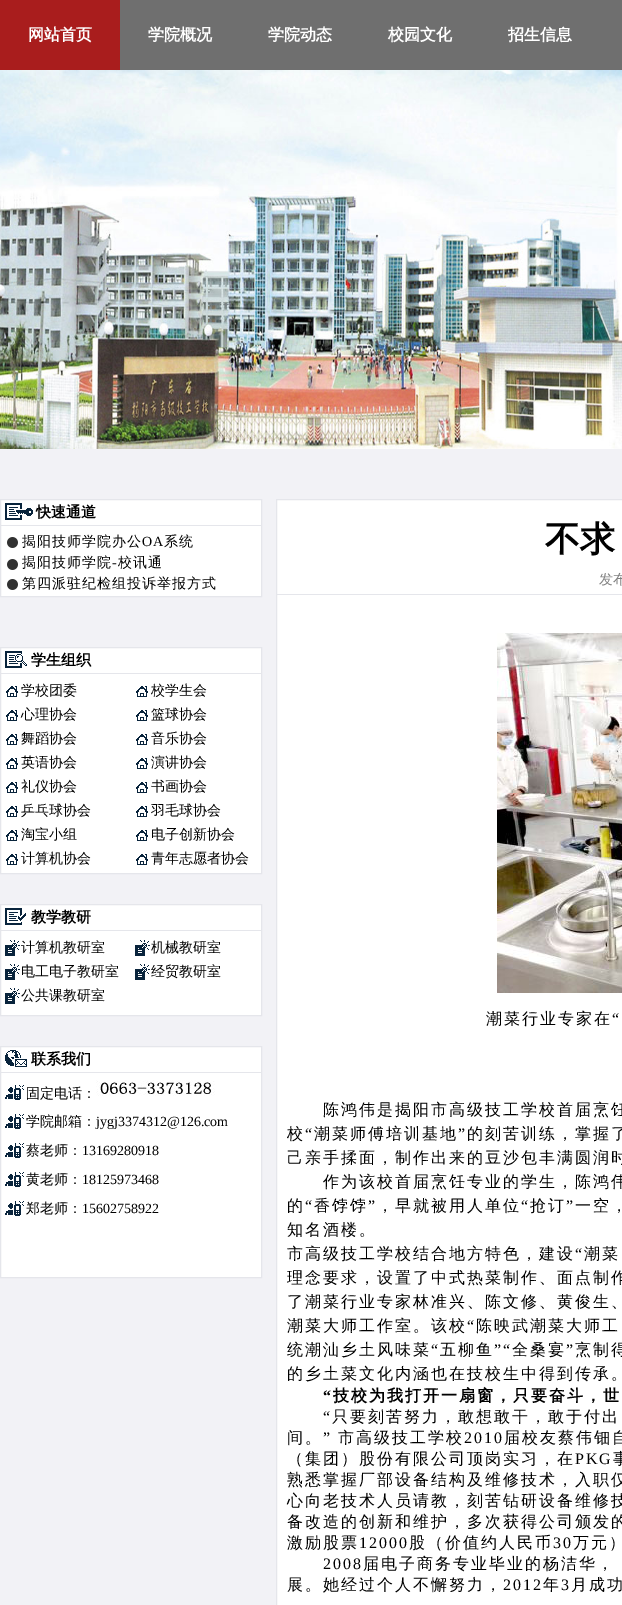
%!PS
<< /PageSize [622 1605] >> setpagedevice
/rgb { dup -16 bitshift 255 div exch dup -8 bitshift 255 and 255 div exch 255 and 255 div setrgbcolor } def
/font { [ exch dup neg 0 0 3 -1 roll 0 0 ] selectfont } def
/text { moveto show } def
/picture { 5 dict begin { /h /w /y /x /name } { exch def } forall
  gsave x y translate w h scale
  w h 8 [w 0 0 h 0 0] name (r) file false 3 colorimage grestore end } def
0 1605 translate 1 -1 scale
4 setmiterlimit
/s1 { /WenQuanYiZenHei-Bold 16 font 16#FFFFFF rgb } def
/s2 { /WenQuanYiZenHei-Bold 15 font 16#000000 rgb } def
/s3 { /WenQuanYiZenHei-Medium 14 font 16#000000 rgb } def
/s4 { /LiberationSerif-Regular 14 font 16#000000 rgb } def
/s5 { /WenQuanYiZenHei-Bold 35 font 16#000000 rgb } def
/s6 { /WenQuanYiZenHei-Medium 14 font 16#808080 rgb } def
16#F2F2F6 rgb
0 0 622 1605 rectfill
16#6F6F6F rgb
120 0 502 70 rectfill
16#A91D1D rgb
0 0 120 70 rectfill
s1
(网站首页) 28 40 text
(学院概况) 148 40 text
(学院动态) 268 40 text
(校园文化) 388 40 text
(招生信息) 508 40 text
(pic1.raw) 0 70 622 379 picture
0.5 499.5 moveto 261.5 499.5 lineto 261.5 596.5 lineto 0.5 596.5 lineto closepath gsave fill grestore
16#E5E6EB rgb
stroke
(pic2.raw) 5 503 28 17 picture
1 525 260 1 rectfill
s2
(快速通道) 36 517 text
(pic3.raw) 7 537 11 11 picture
/WenQuanYiZenHei-Medium 14 font
22 546 moveto 1 0 (揭阳技师学院办公) ashow
/LiberationSerif-Regular 14 font
142 546 moveto 1 0 (OA) ashow
/WenQuanYiZenHei-Medium 14 font
164 546 moveto 1 0 (系统) ashow
(pic3.raw) 7 559 11 11 picture
22 567 moveto 1 0 (揭阳技师学院) ashow
/LiberationSerif-Regular 14 font
112 567 moveto 1 0 (-) ashow
/WenQuanYiZenHei-Medium 14 font
118 567 moveto 1 0 (校讯通) ashow
(pic3.raw) 7 579 11 11 picture
22 588 moveto 1 0 (第四派驻纪检组投诉举报方式) ashow
16#FFFFFF rgb
0.5 647.5 moveto 261.5 647.5 lineto 261.5 873.5 lineto 0.5 873.5 lineto closepath gsave fill grestore
16#E5E6EB rgb
stroke
(pic4.raw) 5 651 22 17 picture
1 673 260 1 rectfill
s2
(学生组织) 31 665 text
(pic5.raw) 6 686 12 11 picture
s3
(学校团委) 21 695 text
(pic5.raw) 136 686 12 11 picture
(校学生会) 151 695 text
(pic5.raw) 6 710 12 11 picture
(心理协会) 21 719 text
(pic5.raw) 136 710 12 11 picture
(篮球协会) 151 719 text
(pic5.raw) 6 734 12 11 picture
(舞蹈协会) 21 743 text
(pic5.raw) 136 734 12 11 picture
(音乐协会) 151 743 text
(pic5.raw) 6 758 12 11 picture
(英语协会) 21 767 text
(pic5.raw) 136 758 12 11 picture
(演讲协会) 151 767 text
(pic5.raw) 6 782 12 11 picture
(礼仪协会) 21 791 text
(pic5.raw) 136 782 12 11 picture
(书画协会) 151 791 text
(pic5.raw) 6 806 12 11 picture
(乒乓球协会) 21 815 text
(pic5.raw) 136 806 12 11 picture
(羽毛球协会) 151 815 text
(pic5.raw) 6 830 12 11 picture
(淘宝小组) 21 839 text
(pic5.raw) 136 830 12 11 picture
(电子创新协会) 151 839 text
(pic5.raw) 6 854 12 11 picture
(计算机协会) 21 863 text
(pic5.raw) 136 854 12 11 picture
(青年志愿者协会) 151 863 text
16#FFFFFF rgb
0.5 904.5 moveto 261.5 904.5 lineto 261.5 1015.5 lineto 0.5 1015.5 lineto closepath gsave fill grestore
16#E5E6EB rgb
stroke
(pic6.raw) 5 908 21 17 picture
1 930 260 1 rectfill
s2
(教学教研) 31 922 text
(pic7.raw) 5 940 15 16 picture
s3
(计算机教研室) 21 952 text
(pic7.raw) 135 940 15 16 picture
(机械教研室) 151 952 text
(pic7.raw) 5 964 15 16 picture
(电工电子教研室) 21 976 text
(pic7.raw) 135 964 15 16 picture
(经贸教研室) 151 976 text
(pic7.raw) 5 988 15 16 picture
(公共课教研室) 21 1000 text
16#FFFFFF rgb
0.5 1046.5 moveto 261.5 1046.5 lineto 261.5 1277.5 lineto 0.5 1277.5 lineto closepath gsave fill grestore
16#E5E6EB rgb
stroke
(pic8.raw) 5 1050 22 17 picture
1 1072 260 1 rectfill
s2
(联系我们) 31 1064 text
(pic9.raw) 5 1085 19 15 picture
s3
(固定电话：) 26 1098 text
(pic10.raw) 96 1080 119 16 picture
(pic9.raw) 5 1114 19 15 picture
(学院邮箱：) 26 1126 text
s4
(jygj3374312@126.com) 96 1126 text
(pic9.raw) 5 1143 19 15 picture
s3
(蔡老师：) 26 1155 text
s4
(13169280918) 82 1155 text
(pic9.raw) 5 1172 19 15 picture
s3
(黄老师：) 26 1184 text
s4
(18125973468) 82 1184 text
(pic9.raw) 5 1201 19 15 picture
s3
(郑老师：) 26 1213 text
s4
(15602758922) 82 1213 text
16#FFFFFF rgb
276.5 499.5 moveto 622.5 499.5 lineto 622.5 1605.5 lineto 276.5 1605.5 lineto closepath gsave fill grestore
16#E5E6EB rgb
stroke
s5
(不求) 545 551 text
16#E5E6EB rgb
277 594 345 1 rectfill
s6
(发布) 599 584 text
(pic11.raw) 497 633 125 360 picture
/WenQuanYiZenHei-Medium 16 font
16#000000 rgb
486 1024 moveto 2 0 (潮菜行业专家在) ashow
/LiberationSerif-Regular 16 font
612 1024 moveto 2 0 (“) ashow
/WenQuanYiZenHei-Medium 16 font
323 1115 moveto 2 0 (陈鸿伟是揭阳市高级技工学校首届烹饪) ashow
287 1139 moveto 2 0 (校) ashow
/LiberationSerif-Regular 16 font
305 1139 moveto 2 0 (“) ashow
/WenQuanYiZenHei-Medium 16 font
314 1139 moveto 2 0 (潮菜师傅培训基地) ashow
/LiberationSerif-Regular 16 font
458 1139 moveto 2 0 (”) ashow
/WenQuanYiZenHei-Medium 16 font
467 1139 moveto 2 0 (的刻苦训练，掌握了) ashow
287 1163 moveto 2 0 (己亲手揉面，制作出来的豆沙包丰满圆润时) ashow
323 1187 moveto 2 0 (作为该校首届烹饪专业的学生，陈鸿伟) ashow
287 1211 moveto 2 0 (的) ashow
/LiberationSerif-Regular 16 font
305 1211 moveto 2 0 (“) ashow
/WenQuanYiZenHei-Medium 16 font
314 1211 moveto 2 0 (香饽饽) ashow
/LiberationSerif-Regular 16 font
368 1211 moveto 2 0 (”) ashow
/WenQuanYiZenHei-Medium 16 font
377 1211 moveto 2 0 (，早就被用人单位) ashow
/LiberationSerif-Regular 16 font
521 1211 moveto 2 0 (“) ashow
/WenQuanYiZenHei-Medium 16 font
530 1211 moveto 2 0 (抢订) ashow
/LiberationSerif-Regular 16 font
566 1211 moveto 2 0 (”) ashow
/WenQuanYiZenHei-Medium 16 font
575 1211 moveto 2 0 (一空，) ashow
287 1235 moveto 2 0 (知名酒楼。) ashow
287 1259 moveto 2 0 (市高级技工学校结合地方特色，建设) ashow
/LiberationSerif-Regular 16 font
575 1259 moveto 2 0 (“) ashow
/WenQuanYiZenHei-Medium 16 font
584 1259 moveto 2 0 (潮菜) ashow
287 1283 moveto 2 0 (理念要求，设置了中式热菜制作、面点制作) ashow
287 1307 moveto 2 0 (了潮菜行业专家林准兴、陈文修、黄俊生、) ashow
287 1331 moveto 2 0 (潮菜大师工作室。该校) ashow
/LiberationSerif-Regular 16 font
467 1331 moveto 2 0 (“) ashow
/WenQuanYiZenHei-Medium 16 font
476 1331 moveto 2 0 (陈映武潮菜大师工) ashow
287 1355 moveto 2 0 (统潮汕乡土风味菜) ashow
/LiberationSerif-Regular 16 font
431 1355 moveto 2 0 (“) ashow
/WenQuanYiZenHei-Medium 16 font
440 1355 moveto 2 0 (五柳鱼) ashow
/LiberationSerif-Regular 16 font
494 1355 moveto 2 0 (”“) ashow
/WenQuanYiZenHei-Medium 16 font
512 1355 moveto 2 0 (全桑宴) ashow
/LiberationSerif-Regular 16 font
566 1355 moveto 2 0 (”) ashow
/WenQuanYiZenHei-Medium 16 font
575 1355 moveto 2 0 (烹制得) ashow
287 1379 moveto 2 0 (的乡土菜文化内涵也在技校生中得到传承。) ashow
/LiberationSerif-Bold 16 font
323 1401 moveto 2 0 (“) ashow
/WenQuanYiZenHei-Bold 16 font
333 1401 moveto 2 0 (技校为我打开一扇窗，只要奋斗，世) ashow
/LiberationSerif-Regular 16 font
323 1422 moveto 2 0 (“) ashow
/WenQuanYiZenHei-Medium 16 font
332 1422 moveto 2 0 (只要刻苦努力，敢想敢干，敢于付出) ashow
287 1443 moveto 2 0 (间。) ashow
/LiberationSerif-Regular 16 font
323 1443 moveto 2 0 (”) ashow
/WenQuanYiZenHei-Medium 16 font
338 1443 moveto 2 0 (市高级技工学校) ashow
/LiberationSerif-Regular 16 font
464 1443 moveto 2 0 (2010) ashow
/WenQuanYiZenHei-Medium 16 font
504 1443 moveto 2 0 (届校友蔡伟钿自) ashow
287 1464 moveto 2 0 (（集团）股份有限公司顶岗实习，在) ashow
/LiberationSerif-Regular 16 font
575 1464 moveto 2 0 (PKG) ashow
/WenQuanYiZenHei-Medium 16 font
613 1464 moveto 2 0 (事) ashow
287 1485 moveto 2 0 (熟悉掌握厂部设备结构及维修技术，入职仅) ashow
287 1506 moveto 2 0 (心向老技术人员请教，刻苦钻研设备维修技) ashow
287 1527 moveto 2 0 (备改造的创新和维护，多次获得公司颁发的) ashow
287 1548 moveto 2 0 (激励股票) ashow
/LiberationSerif-Regular 16 font
359 1548 moveto 2 0 (12000) ashow
/WenQuanYiZenHei-Medium 16 font
409 1548 moveto 2 0 (股（价值约人民币) ashow
/LiberationSerif-Regular 16 font
553 1548 moveto 2 0 (30) ashow
/WenQuanYiZenHei-Medium 16 font
573 1548 moveto 2 0 (万元）) ashow
/LiberationSerif-Regular 16 font
323 1569 moveto 2 0 (2008) ashow
/WenQuanYiZenHei-Medium 16 font
363 1569 moveto 2 0 (届电子商务专业毕业的杨洁华，) ashow
287 1590 moveto 2 0 (展。她经过个人不懈努力，) ashow
/LiberationSerif-Regular 16 font
503 1590 moveto 2 0 (2012) ashow
/WenQuanYiZenHei-Medium 16 font
543 1590 moveto 2 0 (年) ashow
/LiberationSerif-Regular 16 font
561 1590 moveto 2 0 (3) ashow
/WenQuanYiZenHei-Medium 16 font
571 1590 moveto 2 0 (月成功) ashow
showpage
